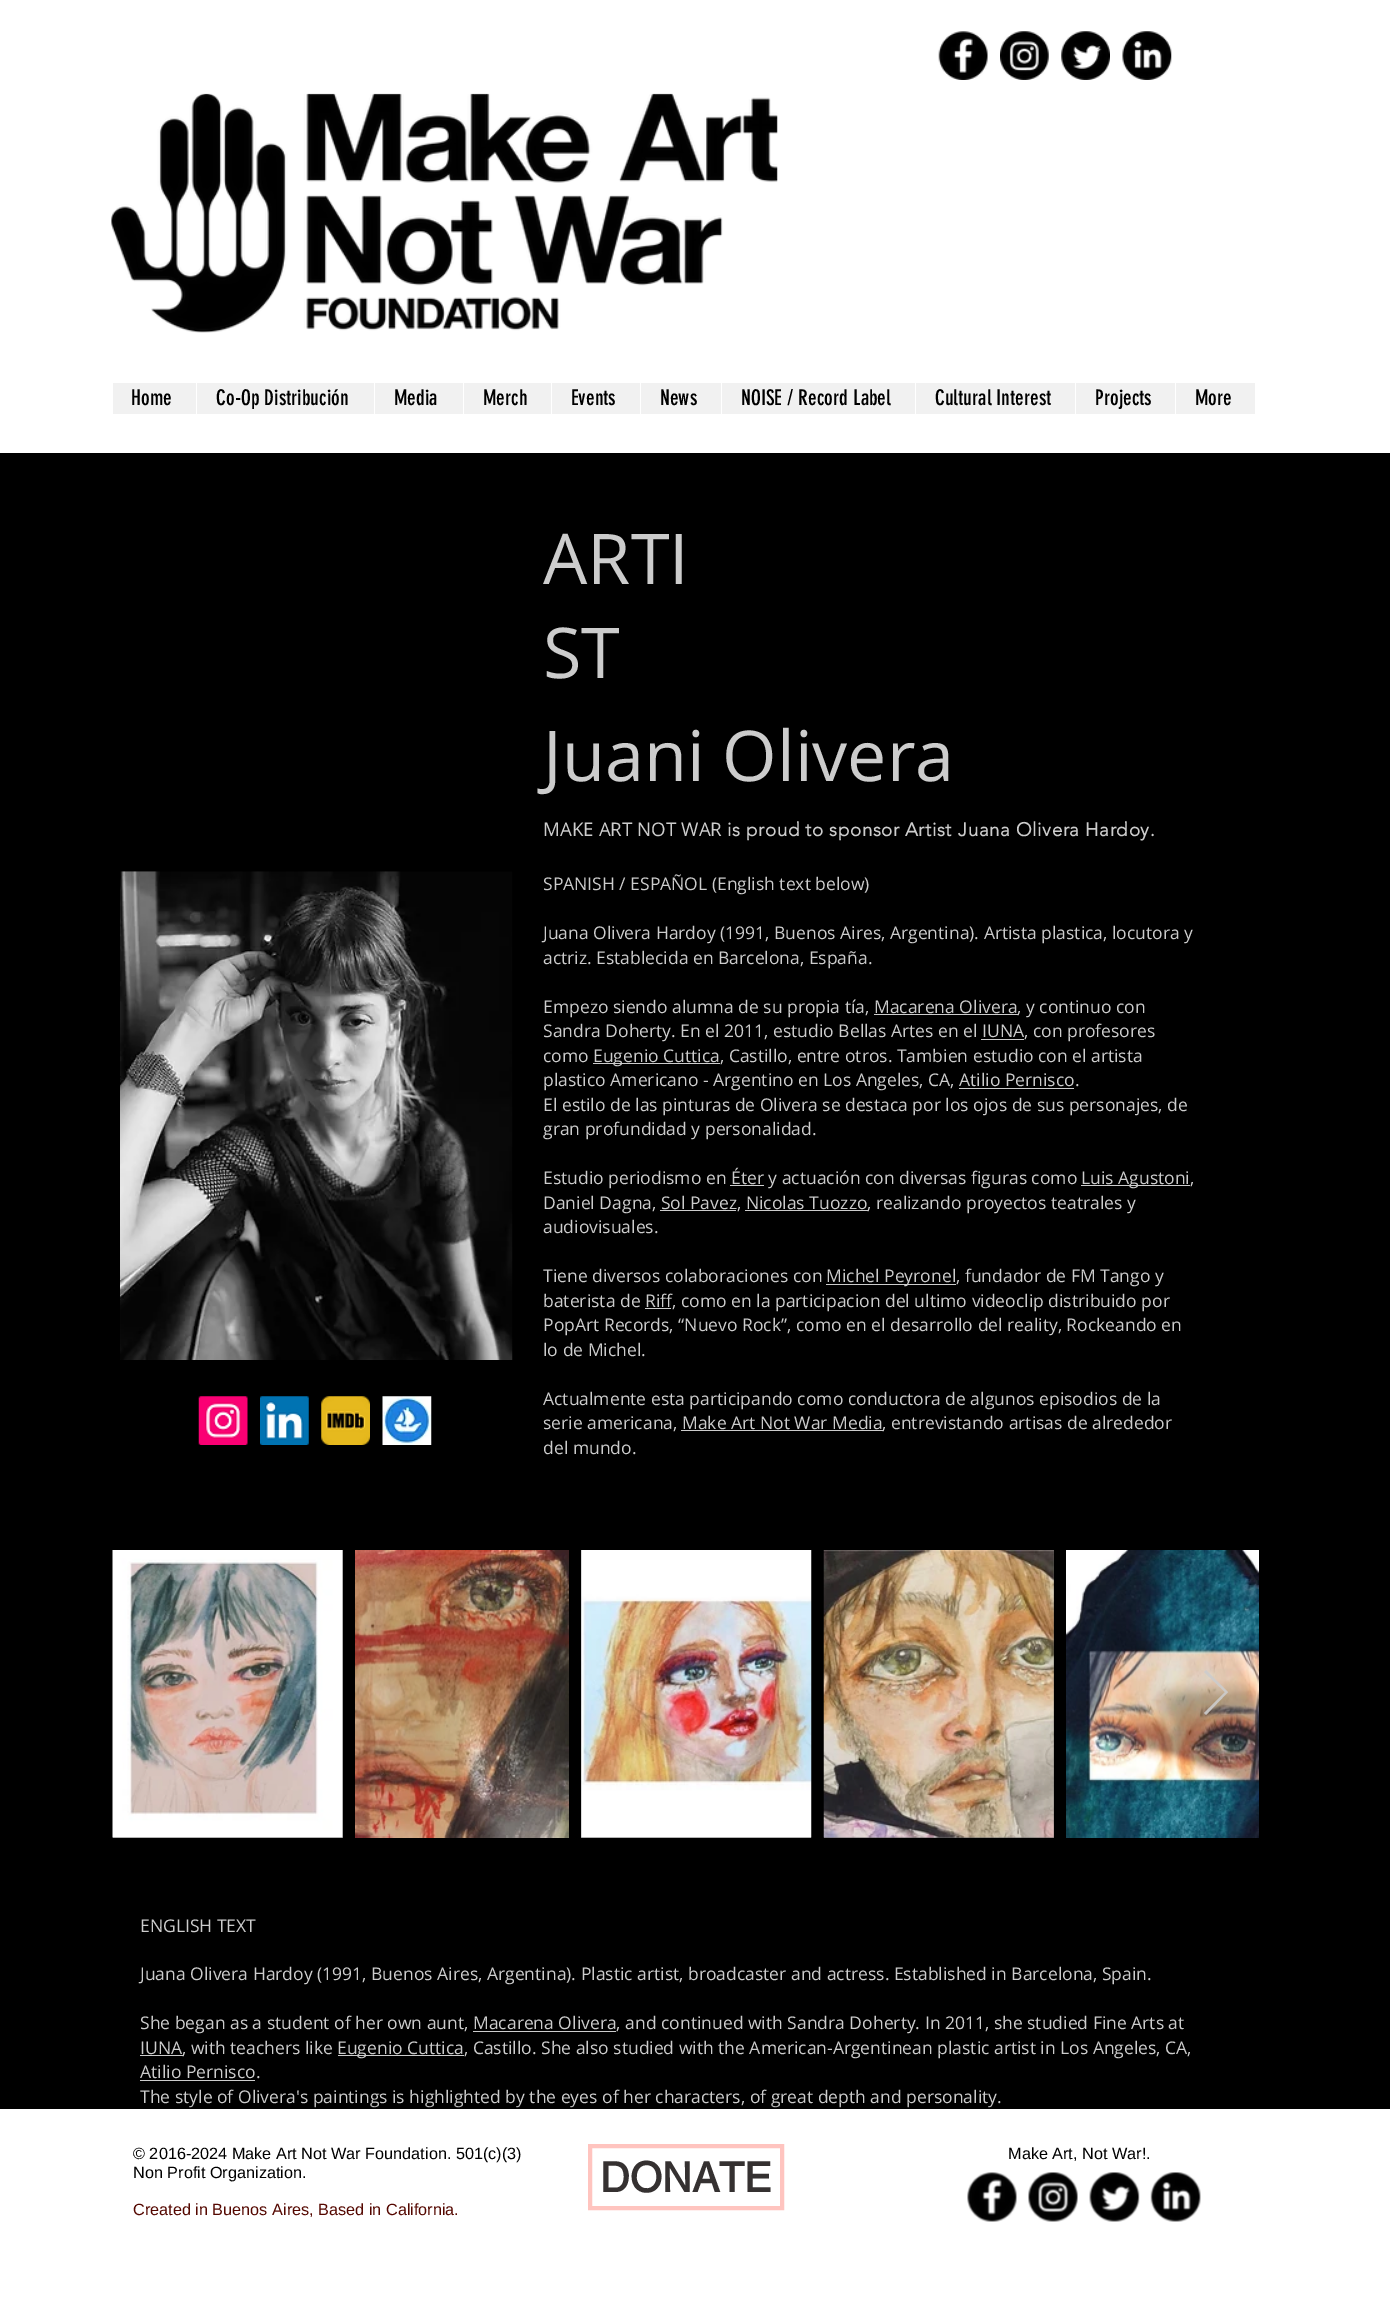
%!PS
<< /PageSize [1390 2313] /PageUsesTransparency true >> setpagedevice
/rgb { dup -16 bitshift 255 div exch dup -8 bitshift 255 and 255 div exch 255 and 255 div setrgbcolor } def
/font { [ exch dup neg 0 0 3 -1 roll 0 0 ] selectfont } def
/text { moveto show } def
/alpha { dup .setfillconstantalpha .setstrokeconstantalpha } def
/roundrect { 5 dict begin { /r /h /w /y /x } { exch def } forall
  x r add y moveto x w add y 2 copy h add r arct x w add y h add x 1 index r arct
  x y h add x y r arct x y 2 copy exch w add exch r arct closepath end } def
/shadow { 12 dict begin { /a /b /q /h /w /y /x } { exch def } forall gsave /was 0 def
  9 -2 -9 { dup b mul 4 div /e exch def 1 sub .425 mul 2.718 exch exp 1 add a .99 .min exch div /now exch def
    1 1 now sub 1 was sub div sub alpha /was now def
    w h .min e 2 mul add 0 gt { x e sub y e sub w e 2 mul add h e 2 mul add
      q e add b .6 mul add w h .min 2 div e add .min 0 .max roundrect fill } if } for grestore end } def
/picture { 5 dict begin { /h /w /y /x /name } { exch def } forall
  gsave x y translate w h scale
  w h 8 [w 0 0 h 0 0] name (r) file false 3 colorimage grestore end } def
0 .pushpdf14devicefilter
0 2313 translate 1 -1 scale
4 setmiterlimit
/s1 { /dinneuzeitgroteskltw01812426-Regular 21.25 font 16#000000 rgb } def
/s2 { /OpenSans-Regular 70 font 16#CCCCCC rgb } def
/s3 { /OpenSans-Regular 18.75 font 16#CCCCCC rgb } def
/s4 { /OpenSans-Regular 17.5 font 16#CCCCCC rgb } def
/s5 { /LiberationSans-Regular 16.25 font 16#000000 rgb } def
/s6 { /LiberationSans-Regular 16.25 font 16#540700 rgb } def
/s7 { /helvetica-Bold 41.25 font 16#353131 rgb } def
16#000000 rgb
0 0 1390 2313 rectfill
16#FFFFFF rgb
0 0 1390 453 rectfill
(pic1.raw) 938 31 50 49 picture
(pic2.raw) 1000 31 49 49 picture
(pic3.raw) 1061 31 49 49 picture
(pic4.raw) 1122 31 50 49 picture
(pic5.raw) 111 93 667 240 picture
16#F1F1F1 rgb
113 383 1142 31 rectfill
s1
(Home) 131 405 text
16#FFFFFF rgb
196 383 1 31 rectfill
s1
(Co-Op Distribución) 216 405 text
16#FFFFFF rgb
374 383 1 31 rectfill
s1
(Media) 394 405 text
16#FFFFFF rgb
463 383 1 31 rectfill
s1
(Merch) 483 405 text
16#FFFFFF rgb
551 383 1 31 rectfill
s1
(Events) 571 405 text
16#FFFFFF rgb
640 383 1 31 rectfill
s1
(News) 660 405 text
16#FFFFFF rgb
721 383 1 31 rectfill
s1
(NOISE / Record Label) 741 405 text
16#FFFFFF rgb
915 383 1 31 rectfill
s1
(Cultural Interest) 935 405 text
16#FFFFFF rgb
1075 383 1 31 rectfill
s1
(Projects) 1095 405 text
16#FFFFFF rgb
1175 383 1 31 rectfill
s1
(More) 1195 405 text
s2
(ARTI) 543 584 text
(ST) 543 678 text
(Juani Olivera) 543 781 text
s3
(MAKE ART NOT WAR) 543 836 text
/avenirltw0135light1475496-Bold 18.75 font
727 836 moveto 0.6 0 (is proud to sponsor) ashow
905 836 moveto 0.5 0 (Artist) ashow
958 836 moveto 0.6 0 (Juana Olivera Hardoy.) ashow
(pic6.raw) 120 871 393 489 picture
s4
(SPANISH / ESPAÑOL \(English text below\)) 543 890 text
(Juana Olivera Hardoy \(1991, Buenos Aires, Argentina\). Artista plastica, locutora y) 543 939 text
(actriz. Establecida en Barcelona, España.) 543 964 text
(Empezo siendo alumna de su propia tía, Macarena Olivera) 543 1013 text
874 1014 144 1 rectfill
(, y continuo con) 1017 1013 text
(Sandra Doherty. En el 2011, estudio Bellas Artes en el IUNA, con profesores) 543 1037 text
981 1039 43 1 rectfill
(como) 543 1062 text
593 1063 127 1 rectfill
(Eugenio Cuttica, Castillo, entre otros. Tambien estudio con el artista) 593 1062 text
(plastico Americano - Argentino en Los Angeles, CA, Atilio Pernisco.) 543 1086 text
959 1088 115 1 rectfill
(El estilo de las pinturas de Olivera se destaca por los ojos de sus personajes, de) 543 1111 text
(gran profundidad y personalidad.) 543 1135 text
(Estudio periodismo en Éter y actuación con diversas figuras como) 543 1184 text
730 1185 34 1 rectfill
1081 1185 109 1 rectfill
(Luis Agustoni,) 1081 1184 text
(Daniel Dagna, Sol Pavez, Nicolas Tuozzo) 543 1209 text
660 1210 76 1 rectfill
745 1210 123 1 rectfill
(, realizando proyectos teatrales y) 867 1209 text
(audiovisuales.) 543 1233 text
(Tiene diversos colaboraciones con) 543 1282 text
826 1284 130 1 rectfill
(Michel Peyronel, fundador de FM Tango y) 826 1282 text
(baterista de Riff, como en la participacion del ultimo videoclip distribuido por) 543 1307 text
645 1308 26 1 rectfill
(PopArt Records, “Nuevo Rock”, como en el desarrollo del reality, Rockeando en) 543 1331 text
(lo de Michel.) 543 1356 text
(Actualmente esta participando como conductora de algunos episodios de la) 543 1405 text
(serie americana, Make Art Not War Media) 543 1429 text
681 1430 202 1 rectfill
(, entrevistando artisas de alrededor) 882 1429 text
(del mundo.) 543 1454 text
(pic7.raw) 198 1396 50 49 picture
(pic8.raw) 260 1396 49 49 picture
(pic9.raw) 321 1396 49 49 picture
(pic10.raw) 382 1396 50 49 picture
16#666666 rgb
113 1550 230 288 rectfill
(pic11.raw) 112 1550 231 288 picture
(pic12.raw) 355 1550 214 288 picture
581 1550 230 288 rectfill
(pic13.raw) 581 1550 231 288 picture
824 1550 230 288 rectfill
(pic14.raw) 823 1550 231 288 picture
(pic15.raw) 1066 1550 193 288 picture
0.9 alpha
16#CCCCCC rgb
1204 1672 moveto 1206 1670 lineto 1228 1692 lineto 1206 1715 lineto 1204 1713 lineto 1225 1692 lineto closepath fill
1 alpha
(ENGLISH TEXT) 140 1932 text
(Juana Olivera Hardoy \(1991, Buenos Aires, Argentina\). Plastic artist, broadcaster and actress. Established in Barcelona, Spain.) 140 1980 text
(She began as a student of her own aunt, Macarena Olivera, and continued with Sandra Doherty. In 2011, she studied Fine Arts at) 140 2029 text
473 2031 143 1 rectfill
140 2055 43 1 rectfill
(IUNA, with teachers like) 140 2054 text
338 2055 126 1 rectfill
(Eugenio Cuttica, Castillo. She also studied with the American-Argentinean plastic artist in Los Angeles, CA,) 337 2054 text
(Atilio Pernisco.) 140 2078 text
140 2080 115 1 rectfill
(The style of Olivera's paintings is highlighted by the eyes of her characters, of great depth and personality.) 140 2103 text
16#000000 rgb
0 2109 1390 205 0 3 0.7 shadow
16#FFFFFF rgb
0 2109 1390 204 rectfill
s5
(© 2016-2024 Make Art Not War Foundation. 501\(c\)\(3\)) 133 2159 text
(Non Profit Organization.) 133 2178 text
s6
(Created in Buenos Aires, Based in California.) 133 2215 text
s5
(Make Art, Not War!.) 1008 2159 text
16#FFC4BF rgb
4 setlinewidth
590 2146 192 62 rectstroke
s7
(DONATE) 600 2192 text
(pic16.raw) 967 2172 50 50 picture
(pic17.raw) 1028 2172 50 50 picture
(pic18.raw) 1089 2172 51 50 picture
(pic19.raw) 1150 2172 51 50 picture
.poppdf14devicefilter showpage
